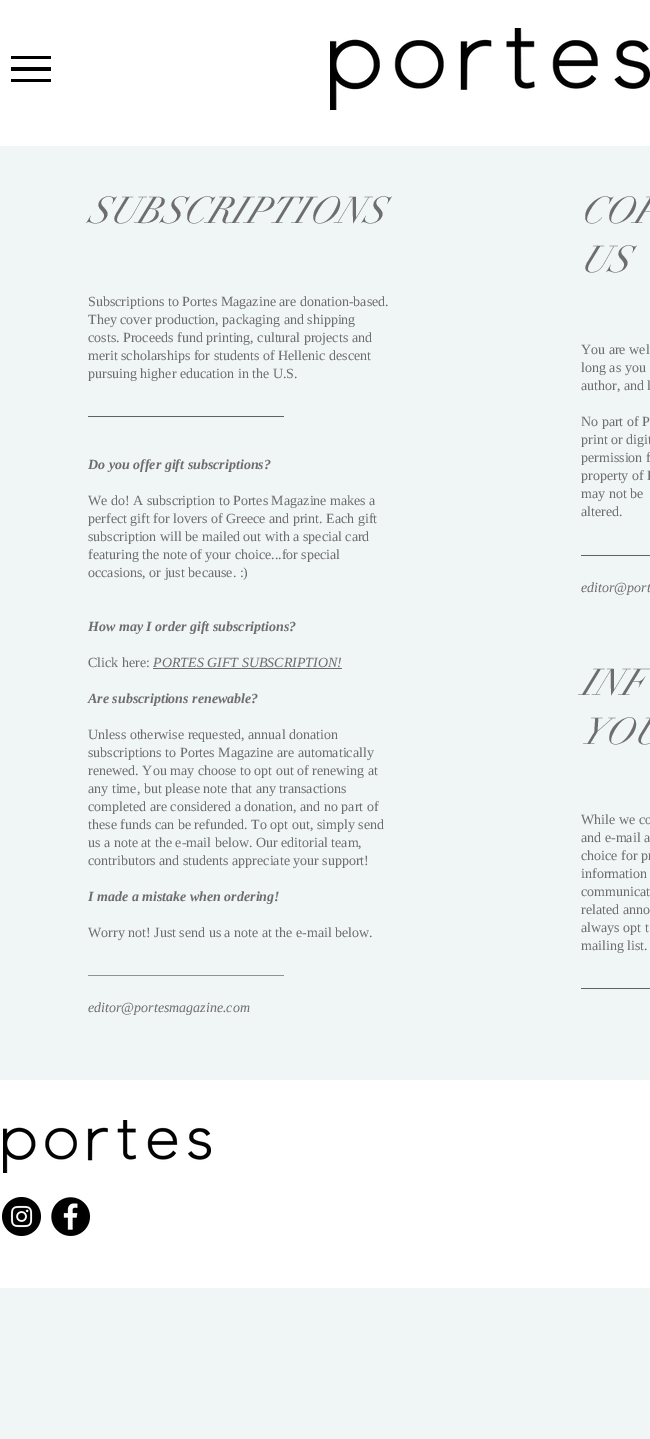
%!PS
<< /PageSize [650 1439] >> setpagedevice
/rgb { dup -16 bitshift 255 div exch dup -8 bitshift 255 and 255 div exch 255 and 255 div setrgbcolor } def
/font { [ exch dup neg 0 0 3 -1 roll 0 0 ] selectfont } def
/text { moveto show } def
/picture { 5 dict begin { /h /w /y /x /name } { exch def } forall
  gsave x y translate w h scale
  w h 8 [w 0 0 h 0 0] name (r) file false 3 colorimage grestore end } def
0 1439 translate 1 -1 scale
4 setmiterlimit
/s1 { /didot-Italic 37 font 16#6E6D6D rgb } def
/s2 { /LiberationSerif-Regular 14 font 16#6E6D6D rgb } def
/s3 { /futura-Regular 14 font 16#2F2E2E rgb } def
/s4 { /LiberationSerif-BoldItalic 14 font 16#6E6D6D rgb } def
/s5 { /LiberationSerif-Italic 14 font 16#6E6D6D rgb } def
16#F0F5F5 rgb
0 0 650 1439 rectfill
16#FFFFFF rgb
0 0 650 146 rectfill
16#000000 rgb
11 79 40 3 rectfill
11 56 40 3 rectfill
11 67 40 4 rectfill
(pic1.raw) 330 28 320 82 picture
s1
(SUBSCRIPTIONS) 88 223 text
(COP) 581 223 text
(US) 581 272 text
s2
(Subscriptions to Portes Magazine are donation-based.) 88 306 text
(They cover production, packaging and shipping) 88 324 text
(costs. Proceeds fund printing, cultural projects and) 88 342 text
(merit scholarships for students of Hellenic descent) 88 360 text
(pursuing higher education in the U.S.) 88 378 text
s3
(____________________________) 88 415 text
s4
(Do you offer gift subscriptions?) 88 469 text
s2
(We do! A subscription to Portes Magazine makes a) 88 505 text
(perfect gift for lovers of Greece and print. Each gift) 88 523 text
(subscription will be mailed out with a special card) 88 541 text
(featuring the note of your choice...for special) 88 559 text
(occasions, or just because. :\)) 88 577 text
s4
(How may I order gift subscriptions?) 88 631 text
s2
(Click here:) 88 667 text
s5
(PORTES GIFT SUBSCRIPTION!) 153 667 text
153 668 189 1 rectfill
s4
(Are subscriptions renewable?) 88 703 text
s2
(Unless otherwise requested, annual donation) 88 739 text
(subscriptions to Portes Magazine are automatically) 88 757 text
(renewed. You may choose to opt out of renewing at) 88 775 text
(any time, but please note that any transactions) 88 793 text
(completed are considered a donation, and no part of) 88 811 text
(these funds can be refunded. To opt out, simply send) 88 829 text
(us a note at the e-mail below. Our editorial team,) 88 847 text
(contributors and students appreciate your support!) 88 865 text
s4
(I made a mistake when ordering!) 88 901 text
s2
(Worry not! Just send us a note at the e-mail below.) 88 937 text
(____________________________) 88 974 text
s5
(editor@portesmagazine.com) 88 1012 text
s2
(You are wel) 581 354 text
(long as you) 581 372 text
(author, and l) 581 390 text
(No part of P) 581 426 text
(print or digit) 581 444 text
(permission f) 581 462 text
(property of P) 581 480 text
(may not be) 581 498 text
(altered.) 581 516 text
s3
(__________) 581 554 text
s5
(editor@port) 581 592 text
s1
(INF) 581 695 text
(YOU) 581 744 text
s2
(While we co) 581 824 text
(and e-mail a) 581 842 text
(choice for pr) 581 860 text
(information) 581 878 text
(communicat) 581 896 text
(related anno) 581 914 text
(always opt t) 581 932 text
(mailing list.) 581 950 text
s3
(__________) 581 987 text
16#FFFFFF rgb
0 1080 650 208 rectfill
(pic2.raw) 3 1120 208 53 picture
(pic3.raw) 2 1197 39 39 picture
(pic4.raw) 51 1197 39 39 picture
showpage
